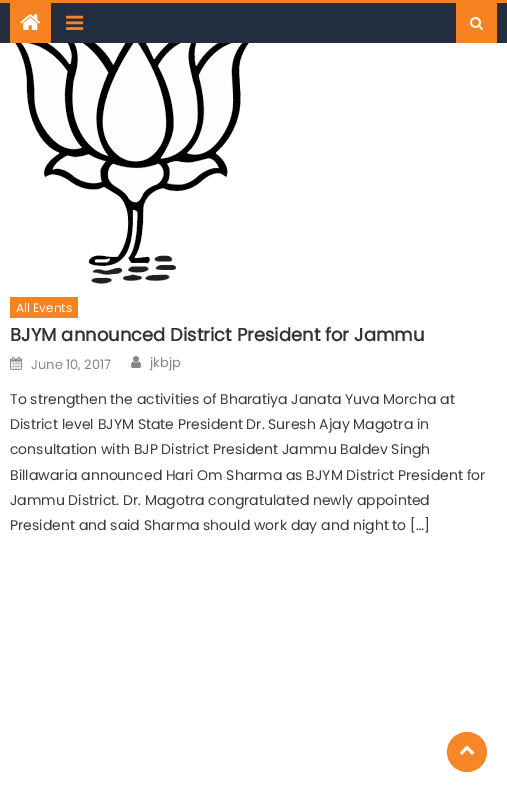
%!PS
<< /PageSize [507 792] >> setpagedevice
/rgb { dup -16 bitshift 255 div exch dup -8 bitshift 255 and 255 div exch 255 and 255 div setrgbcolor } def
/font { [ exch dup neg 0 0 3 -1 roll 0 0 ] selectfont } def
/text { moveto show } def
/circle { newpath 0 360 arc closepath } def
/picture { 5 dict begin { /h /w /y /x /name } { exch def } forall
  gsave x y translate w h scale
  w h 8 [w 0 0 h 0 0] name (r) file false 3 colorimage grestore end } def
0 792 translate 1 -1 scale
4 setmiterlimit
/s1 { /Poppins-Regular 12 font 16#FFFFFF rgb } def
/s2 { /Poppins-Bold 18 font 16#333333 rgb } def
/s3 { /Poppins-Regular 13 font 16#878787 rgb } def
/s4 { /Poppins-Regular 14 font 16#3D3D3D rgb } def
16#FFFFFF rgb
0 0 507 792 rectfill
16#232F40 rgb
0 3 507 40 rectfill
16#F58321 rgb
0 0 507 3 rectfill
10 3 41 40 rectfill
(pic1.raw) 20 14 21 16 picture
(pic2.raw) 66 15 18 15 picture
456 3 41 40 rectfill
(pic3.raw) 470 17 13 13 picture
(pic4.raw) 15 43 234 241 picture
10 297 68 21 rectfill
s1
(All Events) 16 312 text
s2
(BJYM announced District President for Jammu) 10 341 text
(pic5.raw) 10 356 13 14 picture
s3
(June 10, 2017) 31 369 text
(pic6.raw) 131 356 10 12 picture
(jkbjp) 150 367 text
s4
(To strengthen the activities of Bharatiya Janata Yuva Morcha at) 10 404 text
(District level BJYM State President Dr. Suresh Ajay Magotra in) 10 429 text
(consultation with BJP District President Jammu Baldev Singh) 10 454 text
(Billawaria announced Hari Om Sharma as BJYM District President for) 10 480 text
(Jammu District. Dr. Magotra congratulated newly appointed) 10 505 text
(President and said Sharma should work day and night to […]) 10 530 text
16#F58728 rgb
467 752 20 circle fill
(pic7.raw) 459 745 16 10 picture
showpage
